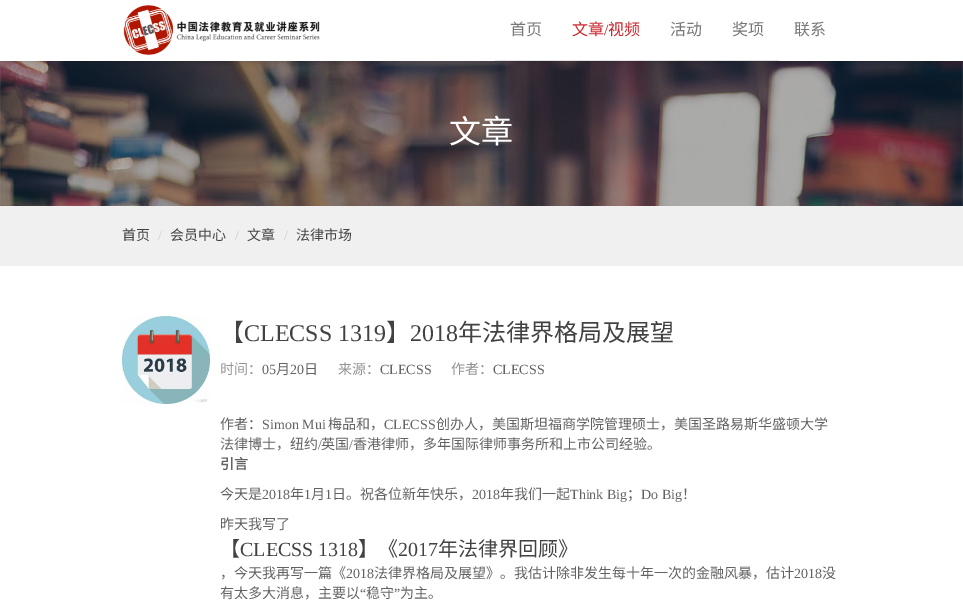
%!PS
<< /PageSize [963 614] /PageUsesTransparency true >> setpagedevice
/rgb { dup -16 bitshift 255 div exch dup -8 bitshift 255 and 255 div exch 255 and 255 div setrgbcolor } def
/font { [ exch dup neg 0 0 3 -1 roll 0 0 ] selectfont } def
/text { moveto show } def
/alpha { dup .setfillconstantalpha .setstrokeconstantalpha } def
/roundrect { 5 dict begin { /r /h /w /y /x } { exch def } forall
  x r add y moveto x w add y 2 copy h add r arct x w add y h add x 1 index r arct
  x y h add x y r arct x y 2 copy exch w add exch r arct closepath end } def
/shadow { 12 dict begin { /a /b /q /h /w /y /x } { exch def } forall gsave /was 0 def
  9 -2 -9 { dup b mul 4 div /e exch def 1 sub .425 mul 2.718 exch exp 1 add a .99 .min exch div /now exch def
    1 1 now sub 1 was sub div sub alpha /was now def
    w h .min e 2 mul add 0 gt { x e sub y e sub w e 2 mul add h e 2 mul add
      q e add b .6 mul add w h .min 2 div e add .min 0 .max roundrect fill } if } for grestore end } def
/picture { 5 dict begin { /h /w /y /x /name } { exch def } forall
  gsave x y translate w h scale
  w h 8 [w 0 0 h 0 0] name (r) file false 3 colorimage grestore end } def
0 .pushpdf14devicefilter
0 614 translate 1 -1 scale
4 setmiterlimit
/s1 { /NotoSansCJKSC-Regular 16 font 16#777777 rgb } def
/s2 { /NotoSansCJKSC-Regular 16 font 16#C9252C rgb } def
/s3 { /LiberationSerif-Regular 16 font 16#C9252C rgb } def
/s4 { /NotoSansCJKSC-Regular 32 font 16#FFFFFF rgb } def
/s5 { /NotoSansCJKSC-Regular 14 font 16#424242 rgb } def
/s6 { /LiberationSerif-Regular 14 font 16#CCCCCC rgb } def
/s7 { /NotoSansCJKSC-Regular 24 font 16#424242 rgb } def
/s8 { /LiberationSerif-Regular 24 font 16#424242 rgb } def
/s9 { /NotoSansCJKSC-Regular 14 font 16#929292 rgb } def
/s10 { /LiberationSerif-Regular 14 font 16#626262 rgb } def
/s11 { /NotoSansCJKSC-Regular 14 font 16#626262 rgb } def
/s12 { /NotoSansCJKSC-Bold 14 font 16#626262 rgb } def
/s13 { /NotoSansCJKSC-Regular 20 font 16#424242 rgb } def
/s14 { /LiberationSerif-Regular 20 font 16#424242 rgb } def
16#FFFFFF rgb
0 0 963 614 rectfill
(pic2.raw) 0 61 963 145 picture
16#000000 rgb
0 0 963 61 0 2.5 0.2 shadow
16#FFFFFF rgb
0 0 963 61 rectfill
(pic1.raw) 123 5 197 50 picture
16#E5E5E5 rgb
495 60 284 1 rectfill
s1
(首页) 510 35 text
s2
(文章) 572 35 text
s3
(/) 604 35 text
s2
(视频) 608 35 text
s1
(活动) 670 35 text
(奖项) 732 35 text
(联系) 794 35 text
s4
(文章) 449 143 text
16#F0F0F0 rgb
0 206 963 60 rectfill
s5
(首页) 122 240 text
s6
(/) 158 240 text
s5
(会员中心) 170 240 text
s6
(/) 235 240 text
s5
(文章) 247 240 text
s6
(/) 284 240 text
s5
(法律市场) 296 240 text
(pic3.raw) 122 316 88 88 picture
s7
(【) 220 341 text
s8
(CLECSS 1319) 244 341 text
s7
(】) 386 341 text
s8
(2018) 410 341 text
s7
(年法律界格局及展望) 458 341 text
s9
(时间：) 220 374 text
s10
(05) 262 374 text
s11
(月) 276 374 text
s10
(20) 290 374 text
s11
(日) 304 374 text
s9
(来源：) 338 374 text
s10
(CLECSS) 380 374 text
s9
(作者：) 451 374 text
s10
(CLECSS) 493 374 text
s11
(作者：) 220 429 text
s10
(Simon Mui) 262 429 text
s11
(梅品和，) 328 429 text
s10
(CLECSS) 384 429 text
s11
(创办人，美国斯坦福商学院管理硕士，美国圣路易斯华盛顿大学) 436 429 text
(法律博士，纽约) 220 449 text
s10
(/) 318 449 text
s11
(英国) 321 449 text
s10
(/) 349 449 text
s11
(香港律师，多年国际律师事务所和上市公司经验。) 353 449 text
s12
(引言) 220 469 text
s11
(今天是) 220 499 text
s10
(2018) 262 499 text
s11
(年) 290 499 text
s10
(1) 304 499 text
s11
(月) 311 499 text
s10
(1) 325 499 text
s11
(日。祝各位新年快乐，) 332 499 text
s10
(2018) 472 499 text
s11
(年我们一起) 500 499 text
s10
(Think Big) 570 499 text
s11
(；) 627 499 text
s10
(Do Big) 641 499 text
s11
(！) 682 499 text
(昨天我写了) 220 529 text
s13
(【) 220 556 text
s14
(CLECSS 1318) 240 556 text
s13
(】《) 358 556 text
s14
(2017) 398 556 text
s13
(年法律界回顾》) 438 556 text
s11
(，今天我再写一篇《) 220 578 text
s10
(2018) 346 578 text
s11
(法律界格局及展望》。我估计除非发生每十年一次的金融风暴，估计) 374 578 text
s10
(2018) 794 578 text
s11
(没) 822 578 text
(有太多大消息，主要以) 220 598 text
s10
(“) 360 598 text
s11
(稳守) 366 598 text
s10
(”) 394 598 text
s11
(为主。) 400 598 text
.poppdf14devicefilter showpage
